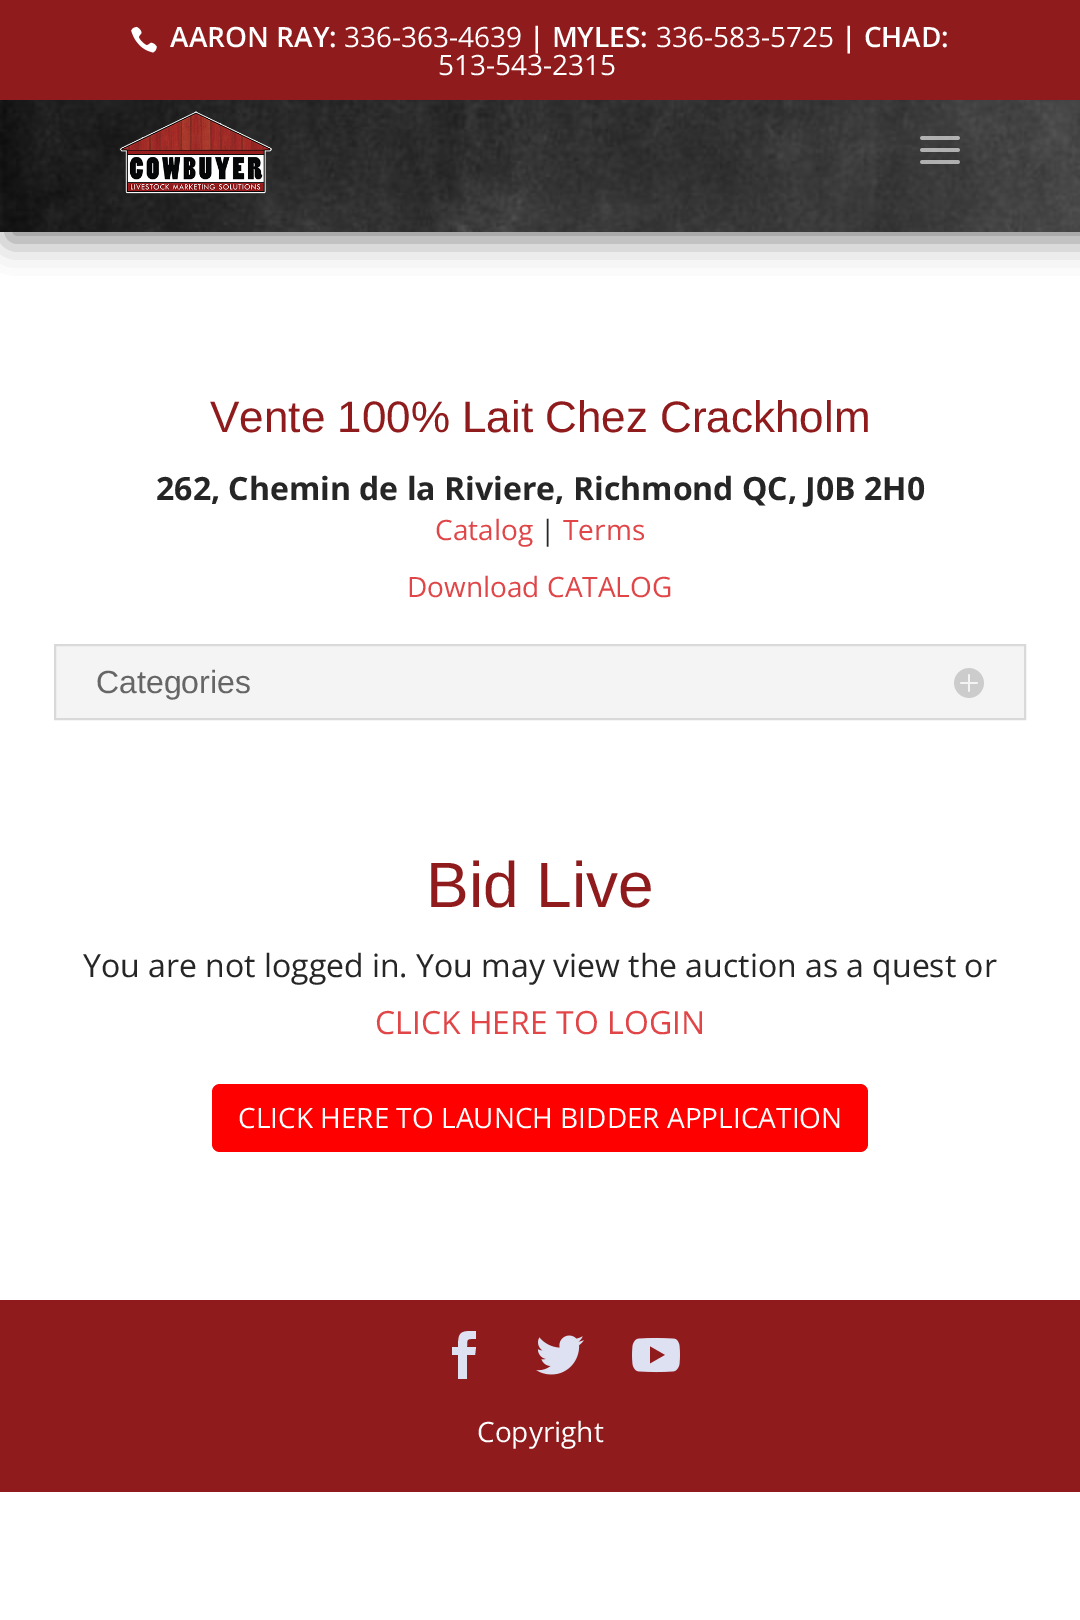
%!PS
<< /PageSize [1080 1620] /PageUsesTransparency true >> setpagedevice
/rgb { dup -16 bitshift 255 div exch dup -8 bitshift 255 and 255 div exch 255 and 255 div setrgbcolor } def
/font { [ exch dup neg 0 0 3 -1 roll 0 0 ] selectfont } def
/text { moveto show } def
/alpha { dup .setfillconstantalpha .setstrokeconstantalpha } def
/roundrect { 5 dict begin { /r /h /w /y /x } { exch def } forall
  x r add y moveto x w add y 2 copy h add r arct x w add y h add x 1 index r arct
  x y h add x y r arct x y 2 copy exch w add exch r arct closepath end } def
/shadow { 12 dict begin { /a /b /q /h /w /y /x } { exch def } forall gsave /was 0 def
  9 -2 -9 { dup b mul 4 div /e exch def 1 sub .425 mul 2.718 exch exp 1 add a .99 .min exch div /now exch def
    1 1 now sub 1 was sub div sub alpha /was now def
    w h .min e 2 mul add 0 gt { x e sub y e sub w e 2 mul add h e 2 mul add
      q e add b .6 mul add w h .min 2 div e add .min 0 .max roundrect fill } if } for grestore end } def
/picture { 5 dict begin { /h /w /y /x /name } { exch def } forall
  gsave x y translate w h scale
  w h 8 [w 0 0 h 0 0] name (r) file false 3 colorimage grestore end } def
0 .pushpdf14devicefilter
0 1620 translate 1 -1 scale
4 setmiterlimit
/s1 { /OpenSans-SemiBold 28 font 16#FFFFFF rgb } def
/s2 { /OpenSans-Regular 28 font 16#FFFFFF rgb } def
/s3 { /LiberationSans-Regular 44 font 16#8F1B1D rgb } def
/s4 { /OpenSans-Bold 32 font 16#262626 rgb } def
/s5 { /OpenSans-Regular 28 font 16#E04648 rgb } def
/s6 { /OpenSans-Regular 28 font 16#262626 rgb } def
/s7 { /LiberationSans-Regular 32 font 16#666666 rgb } def
/s8 { /LiberationSans-Regular 64 font 16#8F1B1D rgb } def
/s9 { /OpenSans-Regular 32 font 16#262626 rgb } def
/s10 { /OpenSans-Regular 32 font 16#E04648 rgb } def
16#FFFFFF rgb
0 0 1080 1620 rectfill
16#000000 rgb
8 80 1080 160 0 16 0.47 shadow
16#8F1B1D rgb
0 0 1080 100 rectfill
(pic1.raw) 131 26 26 27 picture
s1
(AARON RAY:) 170 47 text
s2
(336-363-4639) 344 47 text
s1
(| MYLES:) 529 47 text
s2
(336-583-5725) 656 47 text
s1
(| CHAD:) 841 47 text
s2
(513-543-2315) 438 75 text
(pic2.raw) 0 100 1080 132 picture
(pic3.raw) 119 111 153 83 picture
(pic4.raw) 920 136 40 28 picture
s3
(Vente 100% Lait Chez Crackholm) 210 432 text
s4
(262, Chemin de la Riviere, Richmond QC, J0B 2H0) 156 500 text
s5
(Catalog) 435 540 text
s6
(|) 540 540 text
s5
(Terms) 563 540 text
(Download CATALOG) 407 597 text
16#F4F4F4 rgb
55 645 moveto 1025 645 lineto 1025 719 lineto 55 719 lineto closepath gsave fill grestore
16#D9D9D9 rgb
2 setlinewidth
stroke
s7
(Categories) 96 693 text
(pic5.raw) 954 668 30 30 picture
s8
(Bid Live) 426 907 text
s9
(You are not logged in. You may view the auction as a quest or) 83 977 text
s10
(CLICK HERE TO LOGIN) 375 1034 text
16#FF0000 rgb
212 1084 656 68 8 roundrect fill
s2
(CLICK HERE TO LAUNCH BIDDER APPLICATION) 238 1128 text
16#8F1B1D rgb
0 1300 1080 192 rectfill
16#DEE1F2 rgb
458 1379 moveto 467 1379 lineto 467 1355 lineto 475 1355 lineto 476 1347 lineto 467 1347 lineto 467 1338 467 1339 476 1339 curveto 476 1331 lineto 461 1331 458 1331 458 1347 curveto 452 1347 lineto 452 1355 lineto 458 1355 lineto closepath fill
(pic6.raw) 536 1335 48 40 picture
(pic7.raw) 632 1337 48 36 picture
s2
(Copyright) 477 1442 text
.poppdf14devicefilter showpage
